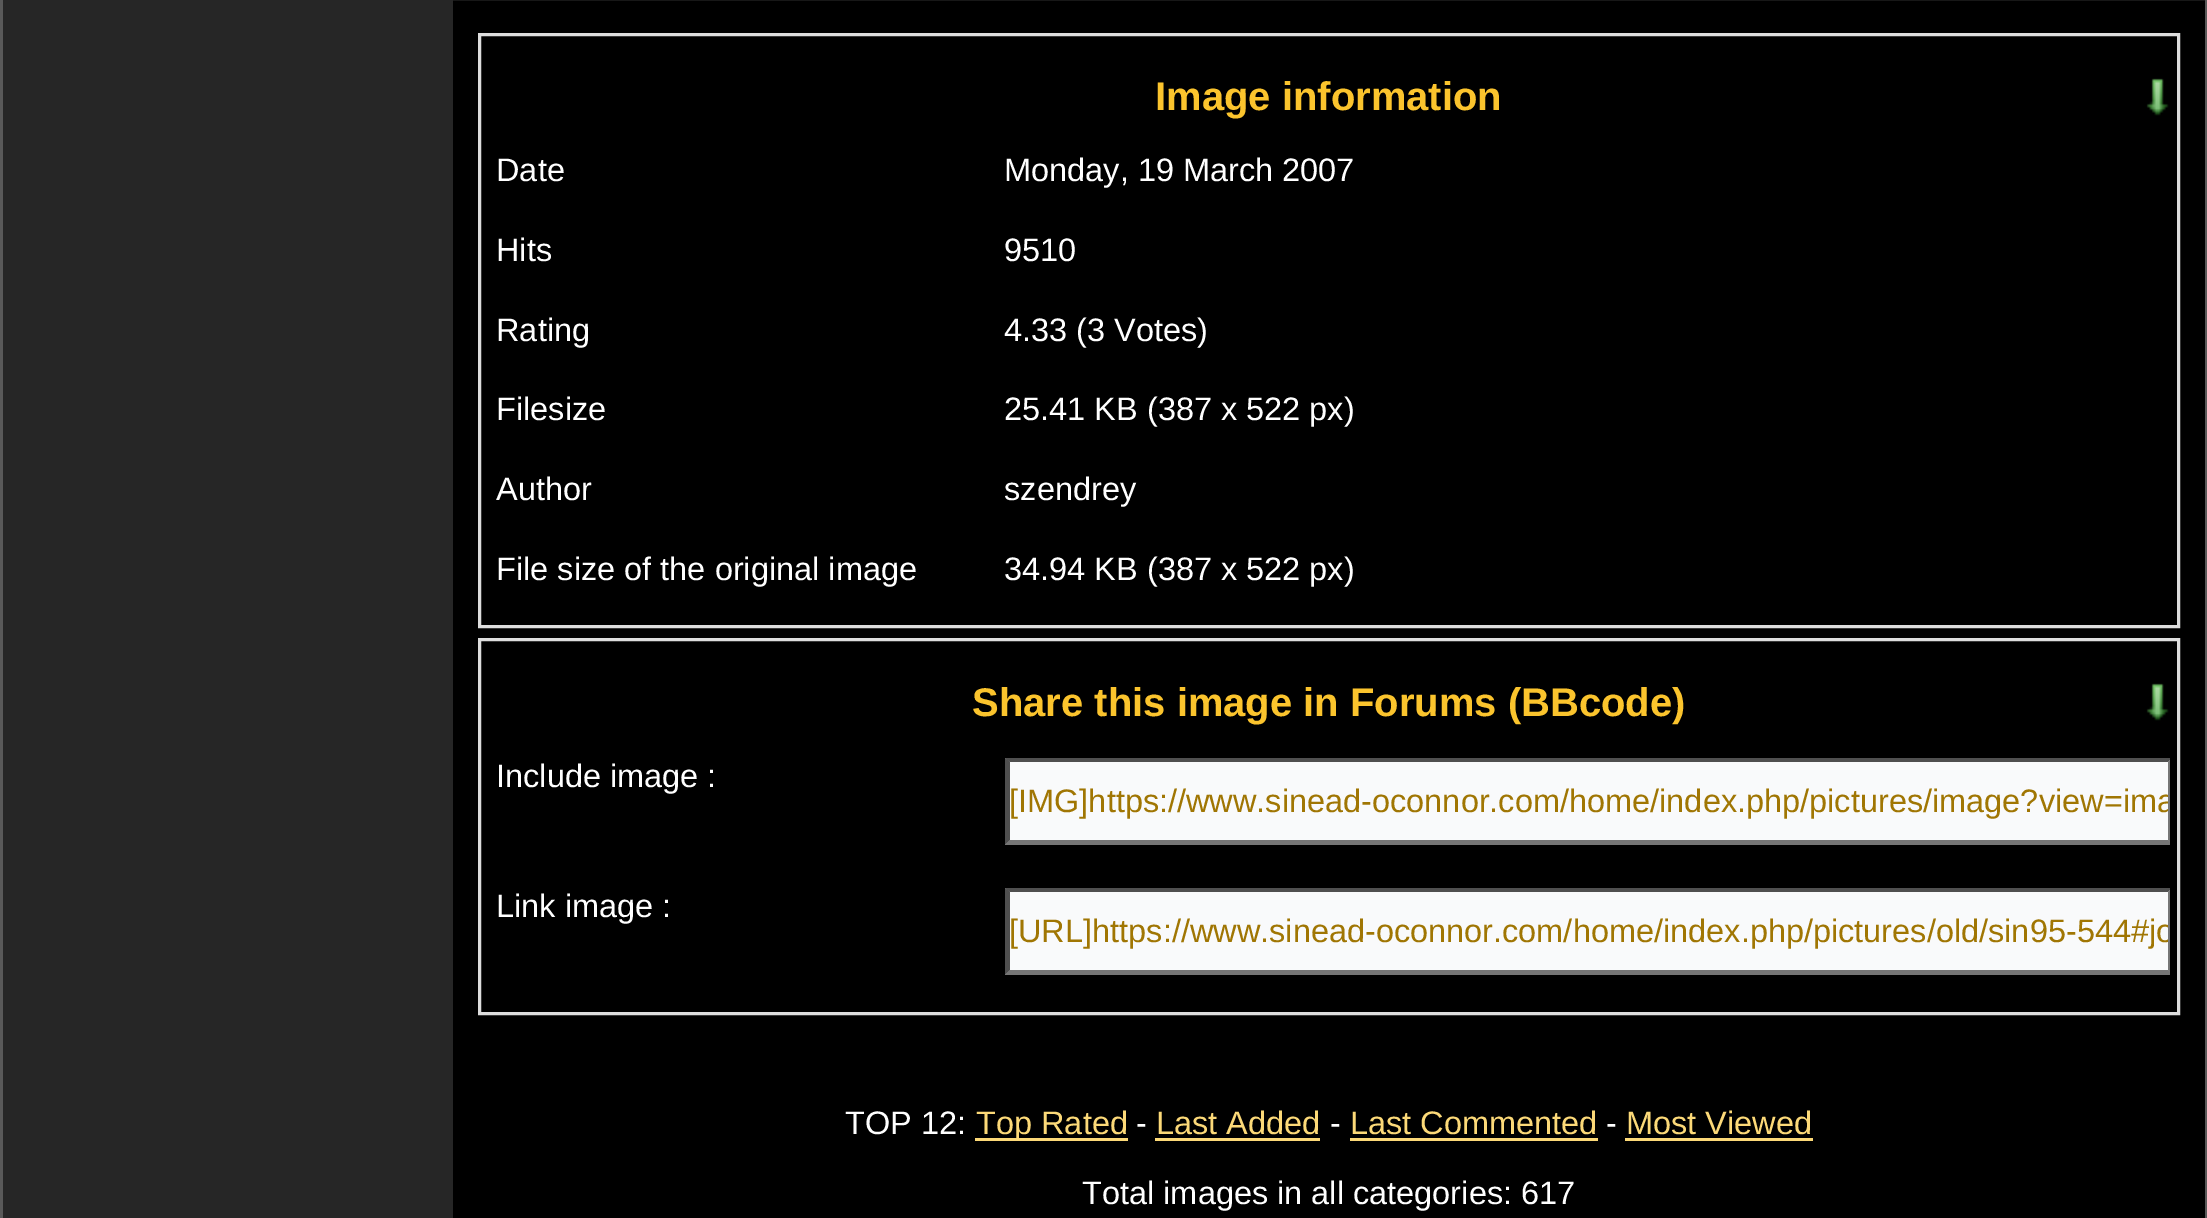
%!PS
<< /PageSize [2207 1218] >> setpagedevice
/rgb { dup -16 bitshift 255 div exch dup -8 bitshift 255 and 255 div exch 255 and 255 div setrgbcolor } def
/font { [ exch dup neg 0 0 3 -1 roll 0 0 ] selectfont } def
/text { moveto show } def
/picture { 5 dict begin { /h /w /y /x /name } { exch def } forall
  gsave x y translate w h scale
  w h 8 [w 0 0 h 0 0] name (r) file false 3 colorimage grestore end } def
0 1218 translate 1 -1 scale
4 setmiterlimit
/s1 { /LiberationSans-Bold 40 font 16#FBC42D rgb } def
/s2 { /LiberationSans-Regular 32.5 font 16#FFFFFF rgb } def
/s3 { /LiberationSans-Regular 32.5 font 16#A07603 rgb } def
/s4 { /LiberationSans-Regular 32.5 font 16#FCD978 rgb } def
16#000000 rgb
0 0 2207 1218 rectfill
16#595959 rgb
3 setlinewidth
1.5 -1.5 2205 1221 rectstroke
16#262626 rgb
3 0 450 1218 rectfill
16#DDDDDD rgb
479.5 34.5 1699 592 rectstroke
(pic1.raw) 2146 78 23 38 picture
s1
(Image information) 1155 110 text
s2
(Date) 496 181 text
(Monday, 19 March 2007) 1004 181 text
(Hits) 496 261 text
(9510) 1004 261 text
(Rating) 496 341 text
(4.33 \(3 Votes\)) 1004 341 text
(Filesize) 496 420 text
(25.41 KB \(387 x 522 px\)) 1004 420 text
(Author) 496 500 text
(szendrey) 1004 500 text
(File size of the original image) 496 580 text
(34.94 KB \(387 x 522 px\)) 1004 580 text
16#DDDDDD rgb
479.5 639.5 1699 374 rectstroke
(pic1.raw) 2146 683 23 38 picture
s1
(Share this image in Forums \(BBcode\)) 972 716 text
s2
(Include image :) 496 787 text
16#F9FAFB rgb
1005 758 1165 87 rectfill
gsave
995 748 1175 107 rectclip
16#4F4F4F rgb
1005 758 moveto 2172 758 lineto 2168 762 lineto 1010 762 lineto closepath fill
16#767676 rgb
2172 758 moveto 2172 845 lineto 2168 840 lineto 2168 762 lineto closepath fill
2172 845 moveto 1005 845 lineto 1010 840 lineto 2168 840 lineto closepath fill
grestore
16#4F4F4F rgb
1005 845 moveto 1005 758 lineto 1010 762 lineto 1010 840 lineto closepath fill
gsave
1010 783 1158 37 rectclip
s3
([IMG]https://www.sinead-oconnor.com/home/index.php/pictures/image?view=ima) 1009 812 text
grestore
s2
(Link image :) 496 917 text
16#F9FAFB rgb
1005 888 1165 87 rectfill
gsave
995 878 1175 107 rectclip
16#4F4F4F rgb
1005 888 moveto 2172 888 lineto 2168 892 lineto 1010 892 lineto closepath fill
16#767676 rgb
2172 888 moveto 2172 975 lineto 2168 970 lineto 2168 892 lineto closepath fill
2172 975 moveto 1005 975 lineto 1010 970 lineto 2168 970 lineto closepath fill
grestore
16#4F4F4F rgb
1005 975 moveto 1005 888 lineto 1010 892 lineto 1010 970 lineto closepath fill
gsave
1010 913 1158 37 rectclip
s3
([URL]https://www.sinead-oconnor.com/home/index.php/pictures/old/sin95-544#jo) 1009 942 text
grestore
s2
(TOP 12:) 845 1134 text
16#FCD978 rgb
975 1138 153 3 rectfill
(Top Rated) 976 1134 text
s2
(-) 1136 1134 text
s4
(Last Added) 1156 1134 text
1155 1138 165 3 rectfill
s2
(-) 1330 1134 text
s4
(Last Commented) 1350 1134 text
1350 1138 248 3 rectfill
s2
(-) 1606 1134 text
s4
(Most Viewed) 1626 1134 text
1625 1138 188 3 rectfill
s2
(Total images in all categories: 617) 1082 1204 text
showpage
